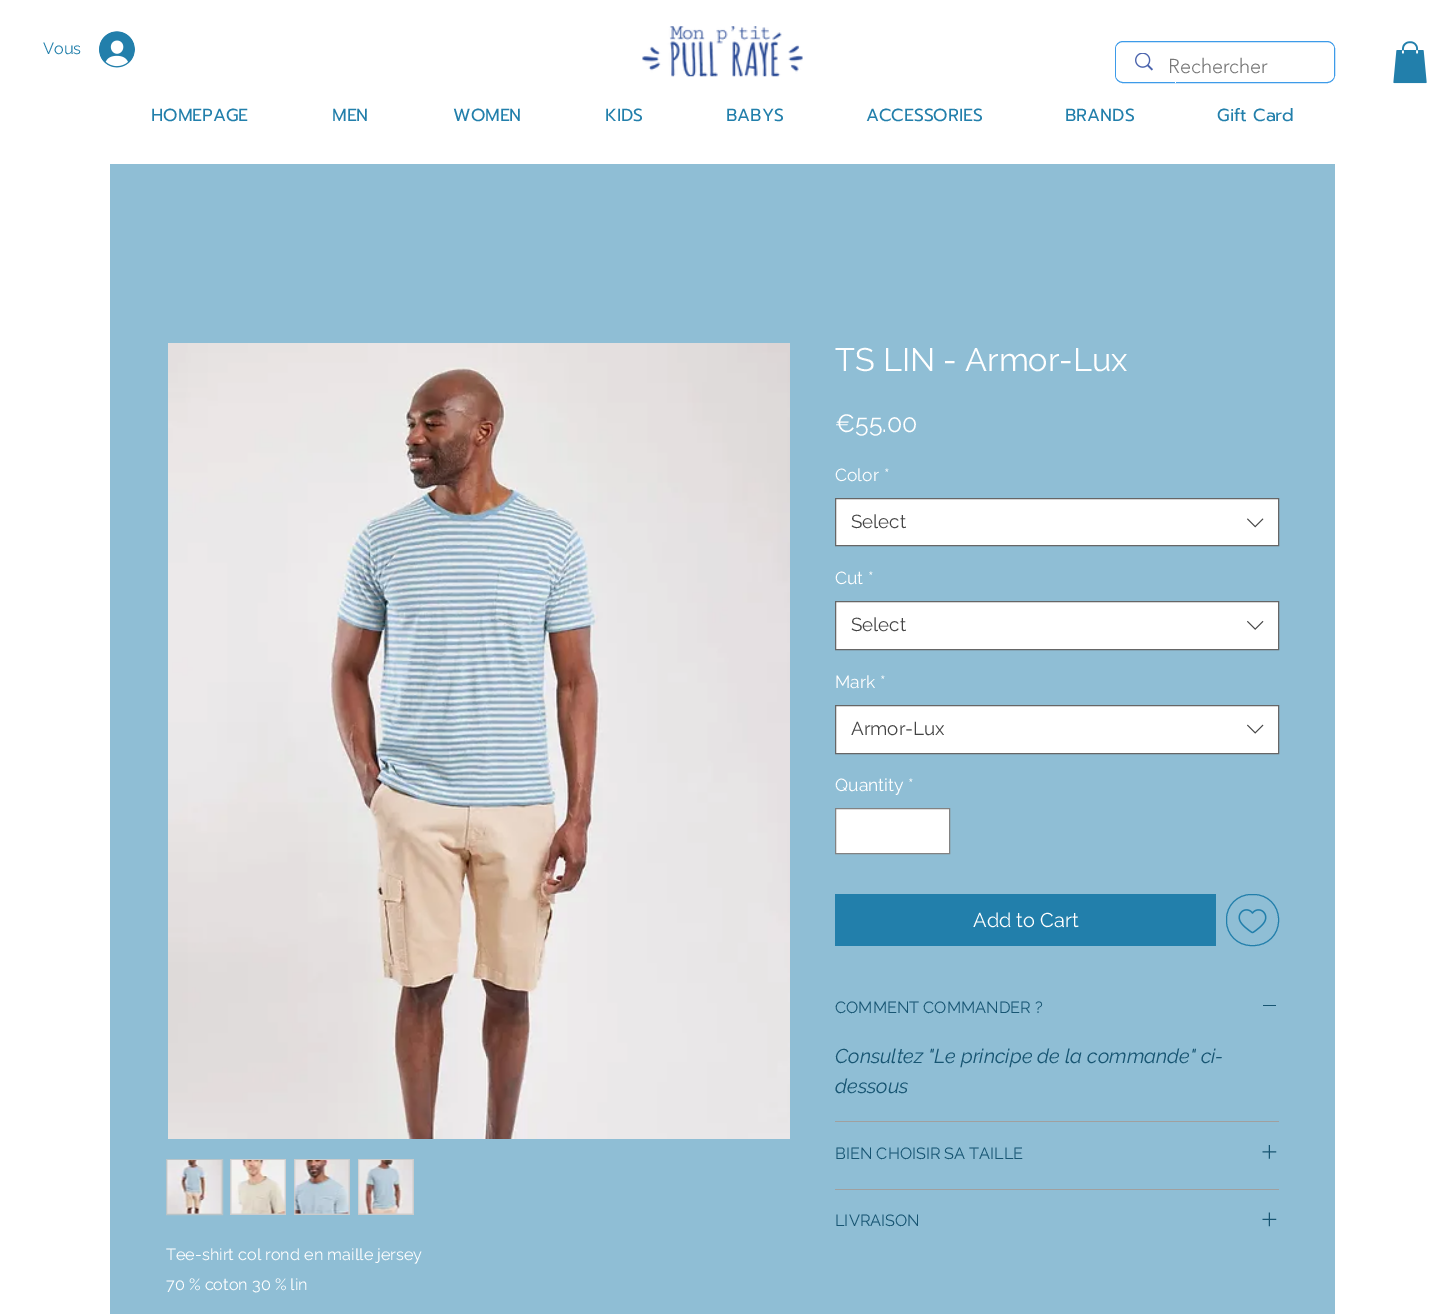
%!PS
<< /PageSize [1444 1314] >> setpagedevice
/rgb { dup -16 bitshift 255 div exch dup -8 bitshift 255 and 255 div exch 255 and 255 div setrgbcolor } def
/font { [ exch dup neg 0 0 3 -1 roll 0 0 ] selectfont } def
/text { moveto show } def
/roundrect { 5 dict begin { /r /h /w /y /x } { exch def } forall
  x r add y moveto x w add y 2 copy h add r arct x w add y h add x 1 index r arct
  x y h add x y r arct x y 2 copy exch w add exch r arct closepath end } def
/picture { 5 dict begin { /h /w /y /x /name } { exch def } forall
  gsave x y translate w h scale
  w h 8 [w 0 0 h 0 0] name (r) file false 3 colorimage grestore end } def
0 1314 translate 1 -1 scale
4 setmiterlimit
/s1 { /Raleway-Regular 16.25 font 16#227FAB rgb } def
/s2 { /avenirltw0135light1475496-Light 20 font 16#787878 rgb } def
/s3 { /Prompt-Regular 17.5 font 16#227FAB rgb } def
/s4 { /Raleway-Regular 32.5 font 16#FFFFFF rgb } def
/s5 { /Raleway-Regular 25 font 16#FFFFFF rgb } def
/s6 { /Raleway-Regular 17.5 font 16#FFFFFF rgb } def
/s7 { /Raleway-Regular 18.75 font 16#444444 rgb } def
/s8 { /Raleway-Regular 20 font 16#FFFFFF rgb } def
/s9 { /Raleway-Regular 16.25 font 16#175572 rgb } def
/s10 { /Raleway-Italic 20 font 16#175572 rgb } def
/s11 { /Raleway-Regular 16.25 font 16#FFFFFF rgb } def
16#FFFFFF rgb
0 0 1444 1314 rectfill
s1
(Vous) 43 54 text
(pic1.raw) 99 31 36 37 picture
(pic2.raw) 642 26 161 51 picture
16#3D9BE9 rgb
1115.5 41.5 219 41 7.5 roundrect stroke
16#FFFFFF rgb
1116 43 218 38 6 roundrect fill
(pic3.raw) 1135 53 18 18 picture
s2
(Rechercher) 1168 73 text
(pic4.raw) 1393 41 34 43 picture
s3
(HOMEPAGE) 151 121 text
(MEN) 332 121 text
(WOMEN) 453 121 text
(KIDS) 605 121 text
(BABYS) 726 121 text
(ACCESSORIES) 866 121 text
(BRANDS) 1065 121 text
16#FFFFFF rgb
1175 81 1 2 rectfill
s3
(Gift Card) 1217 121 text
16#8FBED5 rgb
110 164 1225 1150 rectfill
s4
(TS LIN - Armor-Lux) 835 371 text
s5
(€55.00) 835 432 text
s6
(Color) 835 481 text
(*) 884 481 text
835.5 498.5 moveto 1278.5 498.5 lineto 1278.5 545.5 lineto 835.5 545.5 lineto closepath gsave fill grestore
16#666666 rgb
stroke
s7
(Select) 851 528 text
(pic5.raw) 1247 518 17 10 picture
s6
(Cut) 835 584 text
(*) 868 584 text
835.5 601.5 moveto 1278.5 601.5 lineto 1278.5 649.5 lineto 835.5 649.5 lineto closepath gsave fill grestore
16#666666 rgb
stroke
s7
(Select) 851 631 text
(pic6.raw) 1247 620 17 10 picture
s6
(Mark) 835 688 text
(*) 880 688 text
835.5 705.5 moveto 1278.5 705.5 lineto 1278.5 753.5 lineto 835.5 753.5 lineto closepath gsave fill grestore
16#666666 rgb
stroke
s7
(Armor-Lux) 851 735 text
(pic7.raw) 1247 724 17 10 picture
s6
(Quantity) 835 791 text
(*) 908 791 text
835.5 808.5 moveto 949.5 808.5 lineto 949.5 853.5 lineto 835.5 853.5 lineto closepath gsave fill grestore
16#828282 rgb
stroke
16#227FAB rgb
835 894 381 52 rectfill
s8
(Add to Cart) 973 927 text
16#227FAB rgb
1226.5 894.5 52 51 24.5 roundrect stroke
(pic8.raw) 1238 909 29 25 picture
16#A0A09F rgb
835 1121 444 1 rectfill
s9
(COMMENT COMMANDER ?) 835 1013 text
1263 1005 13 1 rectfill
s10
(Consultez "Le principe de la commande" ci-) 835 1063 text
(dessous) 835 1093 text
16#A0A09F rgb
835 1189 444 1 rectfill
s9
(BIEN CHOISIR SA TAILLE) 835 1159 text
(pic9.raw) 1262 1145 15 14 picture
(LIVRAISON) 835 1226 text
(pic10.raw) 1262 1212 15 15 picture
(pic11.raw) 168 343 622 796 picture
16#CCCCCC rgb
166.5 1159.5 moveto 222.5 1159.5 lineto 222.5 1214.5 lineto 166.5 1214.5 lineto closepath gsave fill grestore
16#B9C4C8 rgb
stroke
(pic12.raw) 167 1160 55 54 picture
16#CCCCCC rgb
230 1159 56 56 rectfill
(pic13.raw) 231 1160 55 54 picture
294 1159 56 56 rectfill
(pic14.raw) 294 1160 55 54 picture
358 1159 56 56 rectfill
(pic15.raw) 358 1160 55 54 picture
s11
(Tee-shirt col rond en maille jersey) 166 1260 text
(70 % coton 30 % lin) 166 1290 text
showpage
